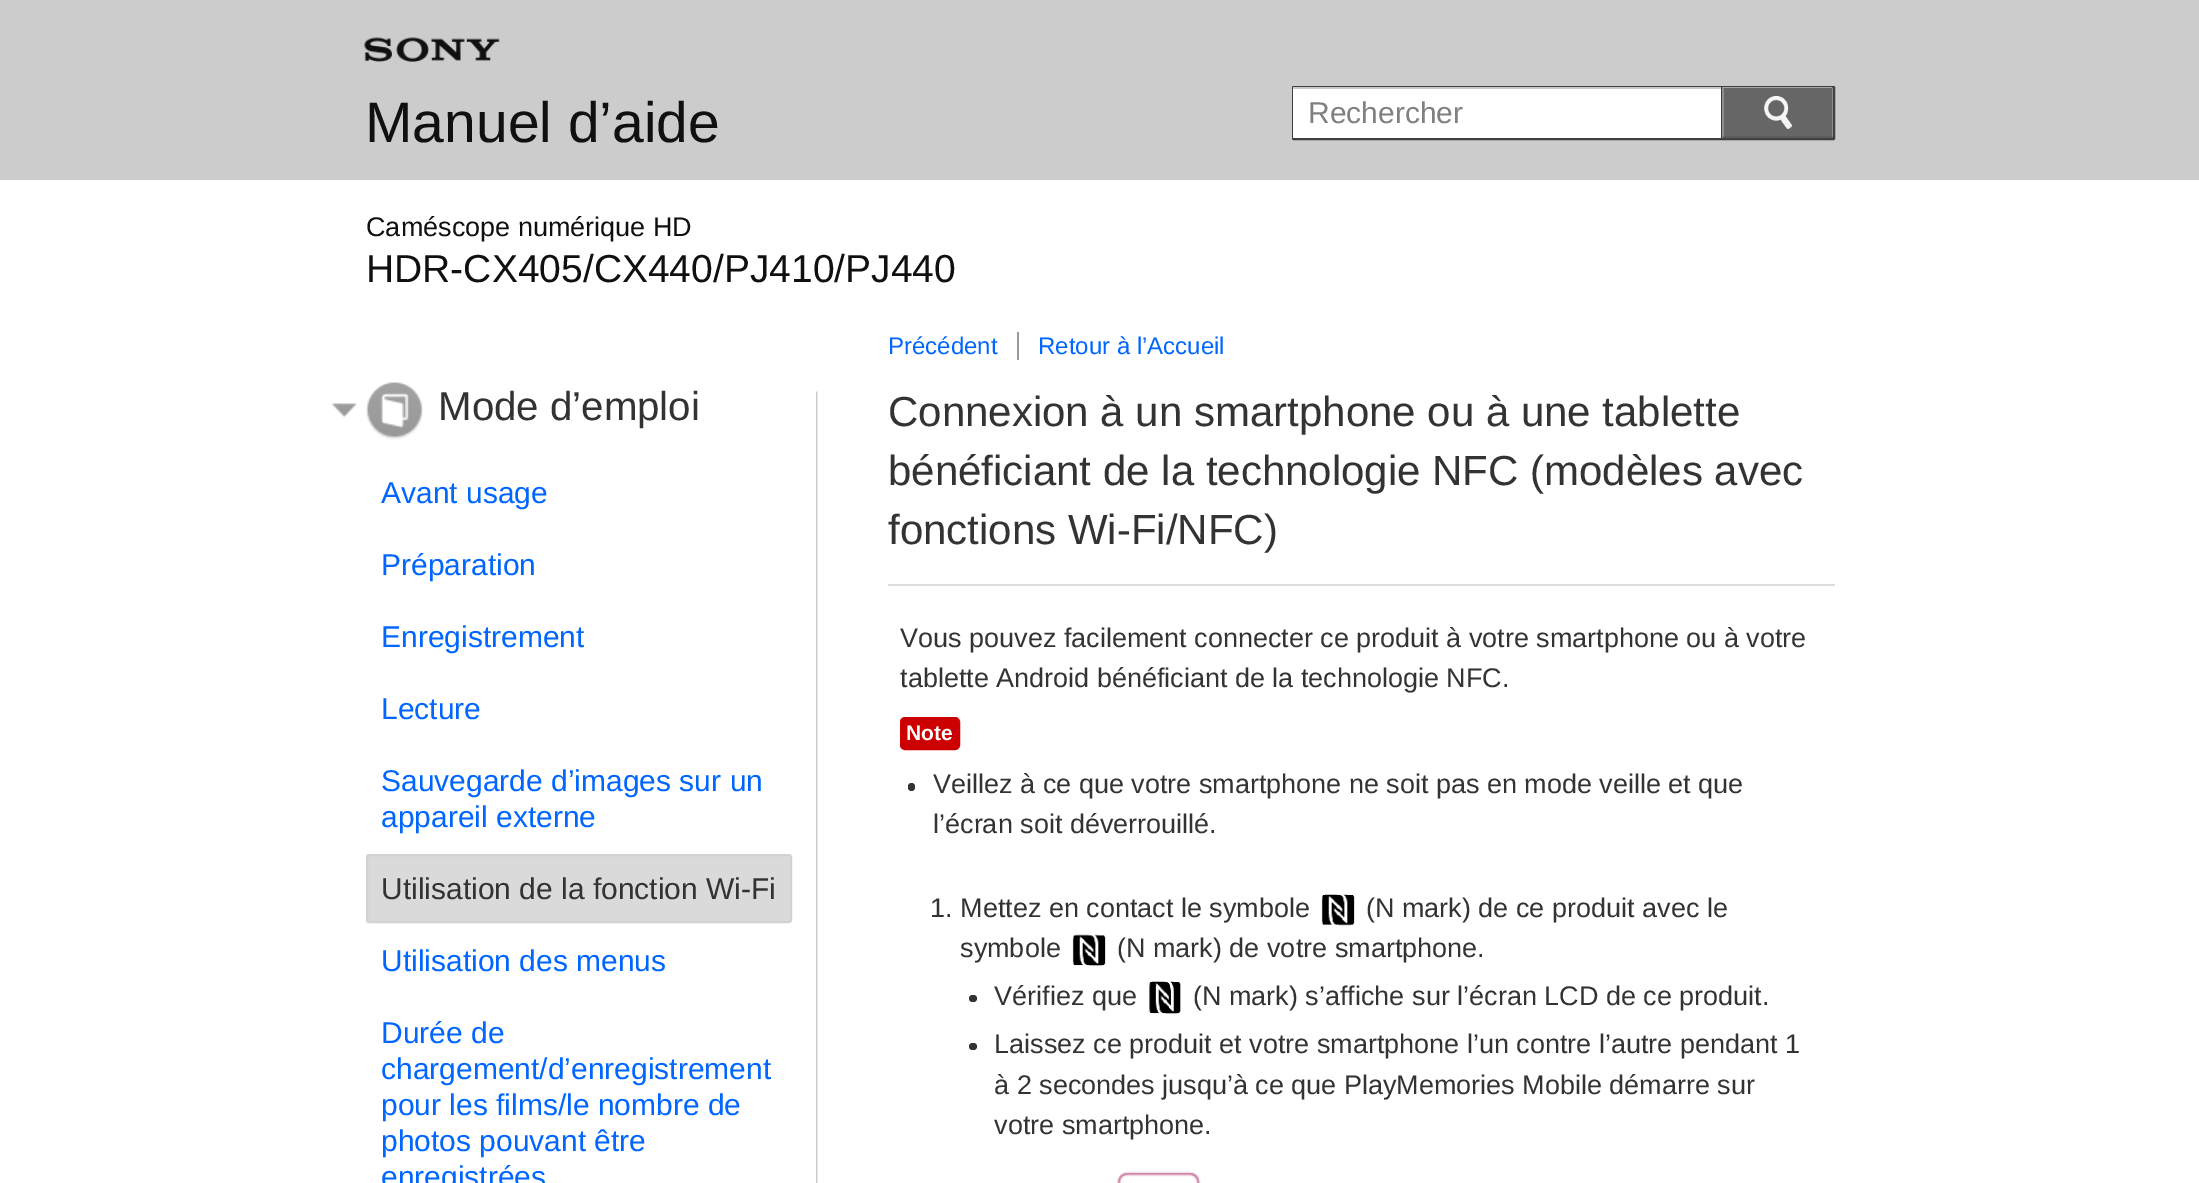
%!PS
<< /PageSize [2199 1183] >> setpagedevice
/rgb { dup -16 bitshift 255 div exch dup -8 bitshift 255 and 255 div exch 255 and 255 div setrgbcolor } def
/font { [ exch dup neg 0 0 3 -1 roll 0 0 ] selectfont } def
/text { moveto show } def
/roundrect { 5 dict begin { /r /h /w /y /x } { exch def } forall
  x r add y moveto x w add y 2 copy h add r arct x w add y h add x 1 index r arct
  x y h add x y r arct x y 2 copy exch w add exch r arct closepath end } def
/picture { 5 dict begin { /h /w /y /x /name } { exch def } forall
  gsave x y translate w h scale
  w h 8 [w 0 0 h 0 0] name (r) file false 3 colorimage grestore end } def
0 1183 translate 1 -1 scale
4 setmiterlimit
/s1 { /LiberationSans-Regular 57 font 16#101010 rgb } def
/s2 { /LiberationSans-Regular 30 font 16#808080 rgb } def
/s3 { /LiberationSans-Regular 27 font 16#101010 rgb } def
/s4 { /LiberationSans-Regular 39 font 16#101010 rgb } def
/s5 { /LiberationSans-Regular 40.25 font 16#333333 rgb } def
/s6 { /LiberationSans-Regular 30 font 16#0066FF rgb } def
/s7 { /LiberationSans-Regular 30 font 16#333333 rgb } def
/s8 { /LiberationSans-Regular 24 font 16#0066FF rgb } def
/s9 { /LiberationSans-Regular 42 font 16#333333 rgb } def
/s10 { /LiberationSans-Regular 27 font 16#333333 rgb } def
/s11 { /LiberationSans-Bold 21 font 16#FFFFFF rgb } def
16#FFFFFF rgb
0 0 2199 1183 rectfill
16#CCCCCC rgb
0 0 2199 180 rectfill
(pic1.raw) 364 37 136 25 picture
s1
(Manuel d’aide) 365 142 text
16#666666 rgb
1293 87 541 52 0.5 roundrect gsave fill grestore
16#404040 rgb
2 setlinewidth
stroke
1721 87 1 51 rectfill
16#FFFFFF rgb
1293 89 428 49 rectfill
16#CACACA rgb
1293 87 428 2 rectfill
s2
(Rechercher) 1308 123 text
16#666666 rgb
1722 87 moveto 1831.5 87 lineto 1832.5 87 1833 87.5 1833 88.5 curveto 1833 136.5 lineto 1833 137.5 1832.5 138 1831.5 138 curveto 1722 138 lineto closepath fill
16#A8A8A8 rgb
1722 87 moveto 1724 89 lineto 1724 88 lineto 1832 88 lineto 1832 87 lineto closepath fill
16#8D8D8D rgb
1833 136 moveto 1833 88 lineto 1832 88 lineto 1832 136 lineto 1831 136 lineto 1832 137 lineto closepath fill
16#5C5C5C rgb
1832 138 moveto 1832 137 lineto 1831 136 lineto 1724 136 lineto 1722 138 lineto closepath fill
16#8D8D8D rgb
1722 87 moveto 1722 138 lineto 1724 136 lineto 1724 89 lineto closepath fill
(pic2.raw) 1764 96 29 33 picture
s3
(Caméscope numérique HD) 366 236 text
s4
(HDR-CX405/CX440/PJ410/PJ440) 366 282 text
(pic3.raw) 816 391 2 792 picture
(pic4.raw) 331 403 26 15 picture
(pic5.raw) 366 382 57 58 picture
s5
(Mode d’emploi) 438 420 text
s6
(Avant usage) 381 503 text
(Préparation) 381 575 text
(Enregistrement) 381 647 text
(Lecture) 381 719 text
(Sauvegarde d’images sur un) 381 791 text
(appareil externe) 381 827 text
16#DADADA rgb
367 855 424 67 2 roundrect gsave fill grestore
16#D2D2D2 rgb
stroke
s7
(Utilisation de la fonction Wi-Fi) 381 899 text
s6
(Utilisation des menus) 381 971 text
(Durée de) 381 1043 text
(chargement/d’enregistrement) 381 1079 text
(pour les films/le nombre de) 381 1115 text
(photos pouvant être) 381 1151 text
(enregistrées) 381 1187 text
s8
(Précédent) 888 354 text
16#999999 rgb
1017 332 2 28 rectfill
s8
(Retour à l’Accueil) 1038 354 text
16#DDDDDD rgb
888 584 947 2 rectfill
s9
(Connexion à un smartphone ou à une tablette) 888 426 text
(bénéficiant de la technologie NFC \(modèles avec) 888 485 text
(fonctions Wi-Fi/NFC\)) 888 544 text
s10
(Vous pouvez facilement connecter ce produit à votre smartphone ou à votre) 900 647 text
(tablette Android bénéficiant de la technologie NFC.) 900 687 text
16#CC0000 rgb
901 718 58 31 4 roundrect gsave fill grestore
stroke
s11
(Note) 906 740 text
16#333333 rgb
908 783 7 8 3.5 roundrect fill
s10
(Veillez à ce que votre smartphone ne soit pas en mode veille et que) 933 793 text
(l’écran soit déverrouillé.) 933 833 text
(1. Mettez en contact le symbole) 930 917 text
(pic6.raw) 1321 894 34 32 picture
(\(N mark\) de ce produit avec le) 1366 917 text
(symbole) 960 957 text
(pic7.raw) 1072 934 34 32 picture
(\(N mark\) de votre smartphone.) 1117 957 text
969 995 8 7 3.5 roundrect fill
(Vérifiez que) 994 1005 text
(pic8.raw) 1149 981 32 33 picture
(\(N mark\) s’affiche sur l’écran LCD de ce produit.) 1193 1005 text
969 1043 8 7 3.5 roundrect fill
(Laissez ce produit et votre smartphone l’un contre l’autre pendant 1) 994 1053 text
(à 2 secondes jusqu’à ce que PlayMemories Mobile démarre sur) 994 1094 text
(votre smartphone.) 994 1134 text
(pic9.raw) 1117 1171 84 12 picture
showpage
